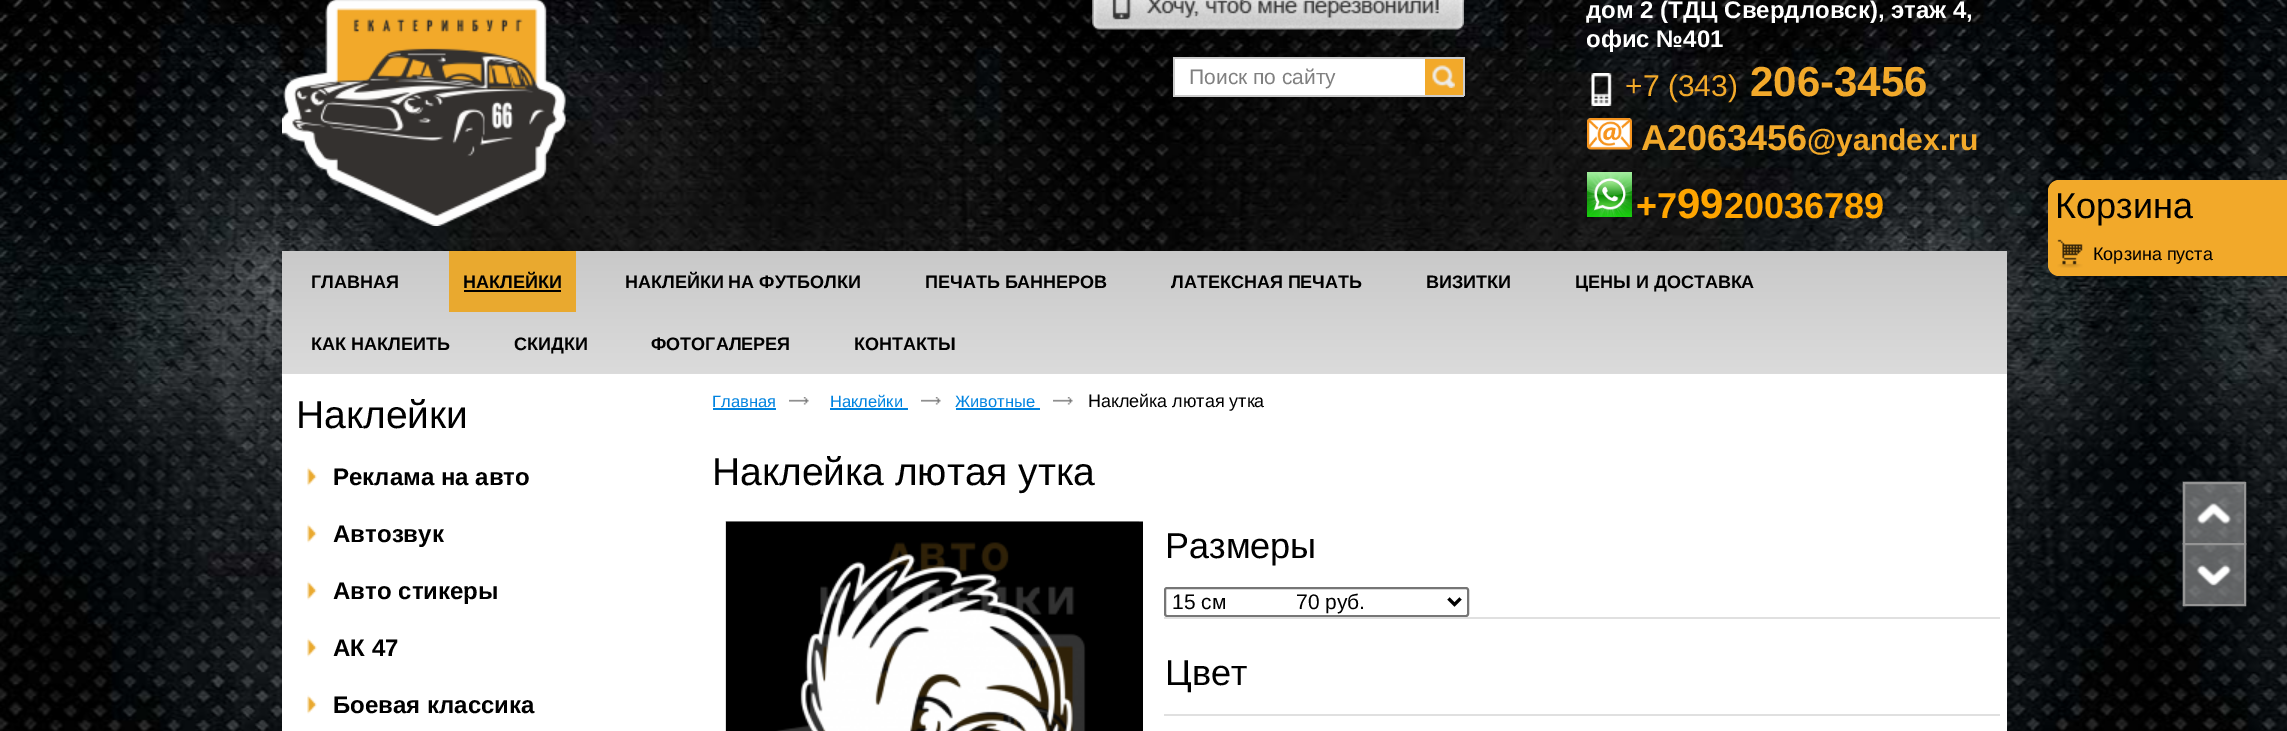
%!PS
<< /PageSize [2287 731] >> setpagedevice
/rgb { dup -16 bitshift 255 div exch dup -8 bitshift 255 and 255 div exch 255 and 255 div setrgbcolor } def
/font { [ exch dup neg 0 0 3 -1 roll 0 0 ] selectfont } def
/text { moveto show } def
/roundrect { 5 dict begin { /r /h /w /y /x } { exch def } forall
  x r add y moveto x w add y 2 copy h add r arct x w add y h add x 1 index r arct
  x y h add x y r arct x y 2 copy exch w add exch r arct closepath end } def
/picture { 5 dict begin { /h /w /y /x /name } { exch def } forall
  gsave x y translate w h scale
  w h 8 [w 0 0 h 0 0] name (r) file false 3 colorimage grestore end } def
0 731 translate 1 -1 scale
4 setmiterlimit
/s1 { /LiberationSans-Bold 24 font 16#FFFFFF rgb } def
/s2 { /LiberationSans-Regular 30 font 16#F2A92A rgb } def
/s3 { /LiberationSans-Bold 42 font 16#F2A92A rgb } def
/s4 { /LiberationSans-Bold 36 font 16#F2A92A rgb } def
/s5 { /LiberationSans-Bold 30 font 16#F2A92A rgb } def
/s6 { /LiberationSans-Bold 36 font 16#FFA500 rgb } def
/s7 { /LiberationSans-Bold 42 font 16#FFA500 rgb } def
/s8 { /LiberationSans-Regular 21 font 16#808080 rgb } def
/s9 { /LiberationSans-Bold 18 font 16#000000 rgb } def
/s10 { /LiberationSans-Regular 36 font 16#000000 rgb } def
/s11 { /LiberationSans-Regular 18 font 16#000000 rgb } def
/s12 { /LiberationSans-Regular 39 font 16#000000 rgb } def
/s13 { /LiberationSans-Bold 24 font 16#000000 rgb } def
/s14 { /LiberationSans-Regular 16.5 font 16#0083E0 rgb } def
/s15 { /LiberationSans-Regular 21 font 16#000000 rgb } def
16#FFFFFF rgb
0 0 2287 731 rectfill
(pic1.raw) 0 0 2287 731 picture
(pic2.raw) 282 0 284 226 picture
(pic3.raw) 1092 0 372 30 picture
s1
(дом 2 \(ТДЦ Свердловск\), этаж 4,) 1586 18 text
(офис №401) 1586 47 text
(pic4.raw) 1591 73 21 33 picture
s2
(+7 \(343\)) 1625 96 text
s3
(206-3456) 1750 96 text
(pic5.raw) 1587 118 45 32 picture
s4
(A2063456) 1641 150 text
s5
(@yandex.ru) 1807 150 text
(pic6.raw) 1587 172 45 45 picture
s6
(+7) 1636 218 text
s7
(99) 1677 218 text
s6
(20036789) 1724 218 text
(pic7.raw) 1601 248 9 3 picture
(pic8.raw) 1635 250 14 1 picture
(pic9.raw) 1669 250 19 1 picture
16#FFFFFF rgb
1175 59 250 36 rectfill
16#CCCCCC rgb
1173 57 291 2 rectfill
1173 95 252 2 rectfill
1173 57 2 39 rectfill
s8
(Поиск по сайту) 1189 84 text
16#F2A92A rgb
1425 59 38 36 rectfill
(pic10.raw) 1432 65 23 23 picture
16#CCCCCC rgb
1463 57 2 39 rectfill
1425 95 39 2 rectfill
gsave 282 251 moveto 2007 251 lineto 2007 374 lineto 282 374 lineto closepath clip newpath
<< /ShadingType 2 /ColorSpace /DeviceRGB /Coords [1145 250 1145 374] /Extend [true true] /Function << /FunctionType 2 /Domain [0 1] /C0 [0.788 0.788 0.788] /C1 [0.859 0.859 0.859] /N 1 >> >> shfill grestore
s9
(ГЛАВНАЯ) 311 288 text
16#E9A92F rgb
449 251 127 61 rectfill
s9
(НАКЛЕЙКИ) 463 288 text
464 290 97 2 rectfill
(НАКЛЕЙКИ НА ФУТБОЛКИ) 625 288 text
(ПЕЧАТЬ БАННЕРОВ) 925 288 text
(ЛАТЕКСНАЯ ПЕЧАТЬ) 1171 288 text
(ВИЗИТКИ) 1426 288 text
(ЦЕНЫ И ДОСТАВКА) 1575 288 text
(КАК НАКЛЕИТЬ) 311 350 text
(СКИДКИ) 514 350 text
(ФОТОГАЛЕРЕЯ) 651 350 text
(КОНТАКТЫ) 854 350 text
16#FFFFFF rgb
282 374 1725 357 rectfill
16#F2A92A rgb
2059 180 moveto 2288 180 lineto 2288 276 lineto 2059 276 lineto 2053 276 2048 271 2048 265 curveto 2048 191 lineto 2048 185 2053 180 2059 180 curveto closepath fill
s10
(Корзина) 2055 218 text
(pic11.raw) 2057 239 26 29 picture
s11
(Корзина пуста) 2093 260 text
s12
(Наклейки) 296 428 text
(pic12.raw) 307 467 10 19 picture
s13
(Реклама на авто) 333 485 text
(pic12.raw) 307 524 10 19 picture
(Автозвук) 333 542 text
(pic12.raw) 307 581 10 19 picture
(Авто стикеры) 333 599 text
(pic12.raw) 307 638 10 19 picture
(АК 47) 333 656 text
(pic12.raw) 307 695 10 19 picture
(Боевая классика) 333 713 text
s14
(Главная) 712 407 text
713 408 63 2 rectfill
(pic13.raw) 789 397 20 8 picture
(Наклейки) 830 407 text
830 408 78 2 rectfill
(pic13.raw) 921 397 20 8 picture
(Животные) 955 407 text
956 408 84 2 rectfill
(pic14.raw) 1053 397 20 8 picture
s11
(Наклейка лютая утка) 1088 407 text
s12
(Наклейка лютая утка) 712 485 text
16#DEDEDE rgb
2 setlinewidth
726 522 412 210 rectstroke
(pic15.raw) 726 521 417 210 picture
s10
(Размеры) 1165 558 text
16#767676 rgb
1165 588 303 28 2 roundrect stroke
16#000000 rgb
3 setlinewidth
1448.5 598.5 moveto 1454.5 604.5 lineto 1460.5 598.5 lineto stroke
s15
(15 см            70 руб.) 1172 609 text
16#E0E0E0 rgb
1164 617 836 2 rectfill
s10
(Цвет) 1165 685 text
16#E0E0E0 rgb
1164 714 836 2 rectfill
(pic16.raw) 2182 481 64 64 picture
16#949494 rgb
2 setlinewidth
2184 483 61 61 rectstroke
(pic17.raw) 2182 543 62 63 picture
2184 544 61 61 rectstroke
showpage
